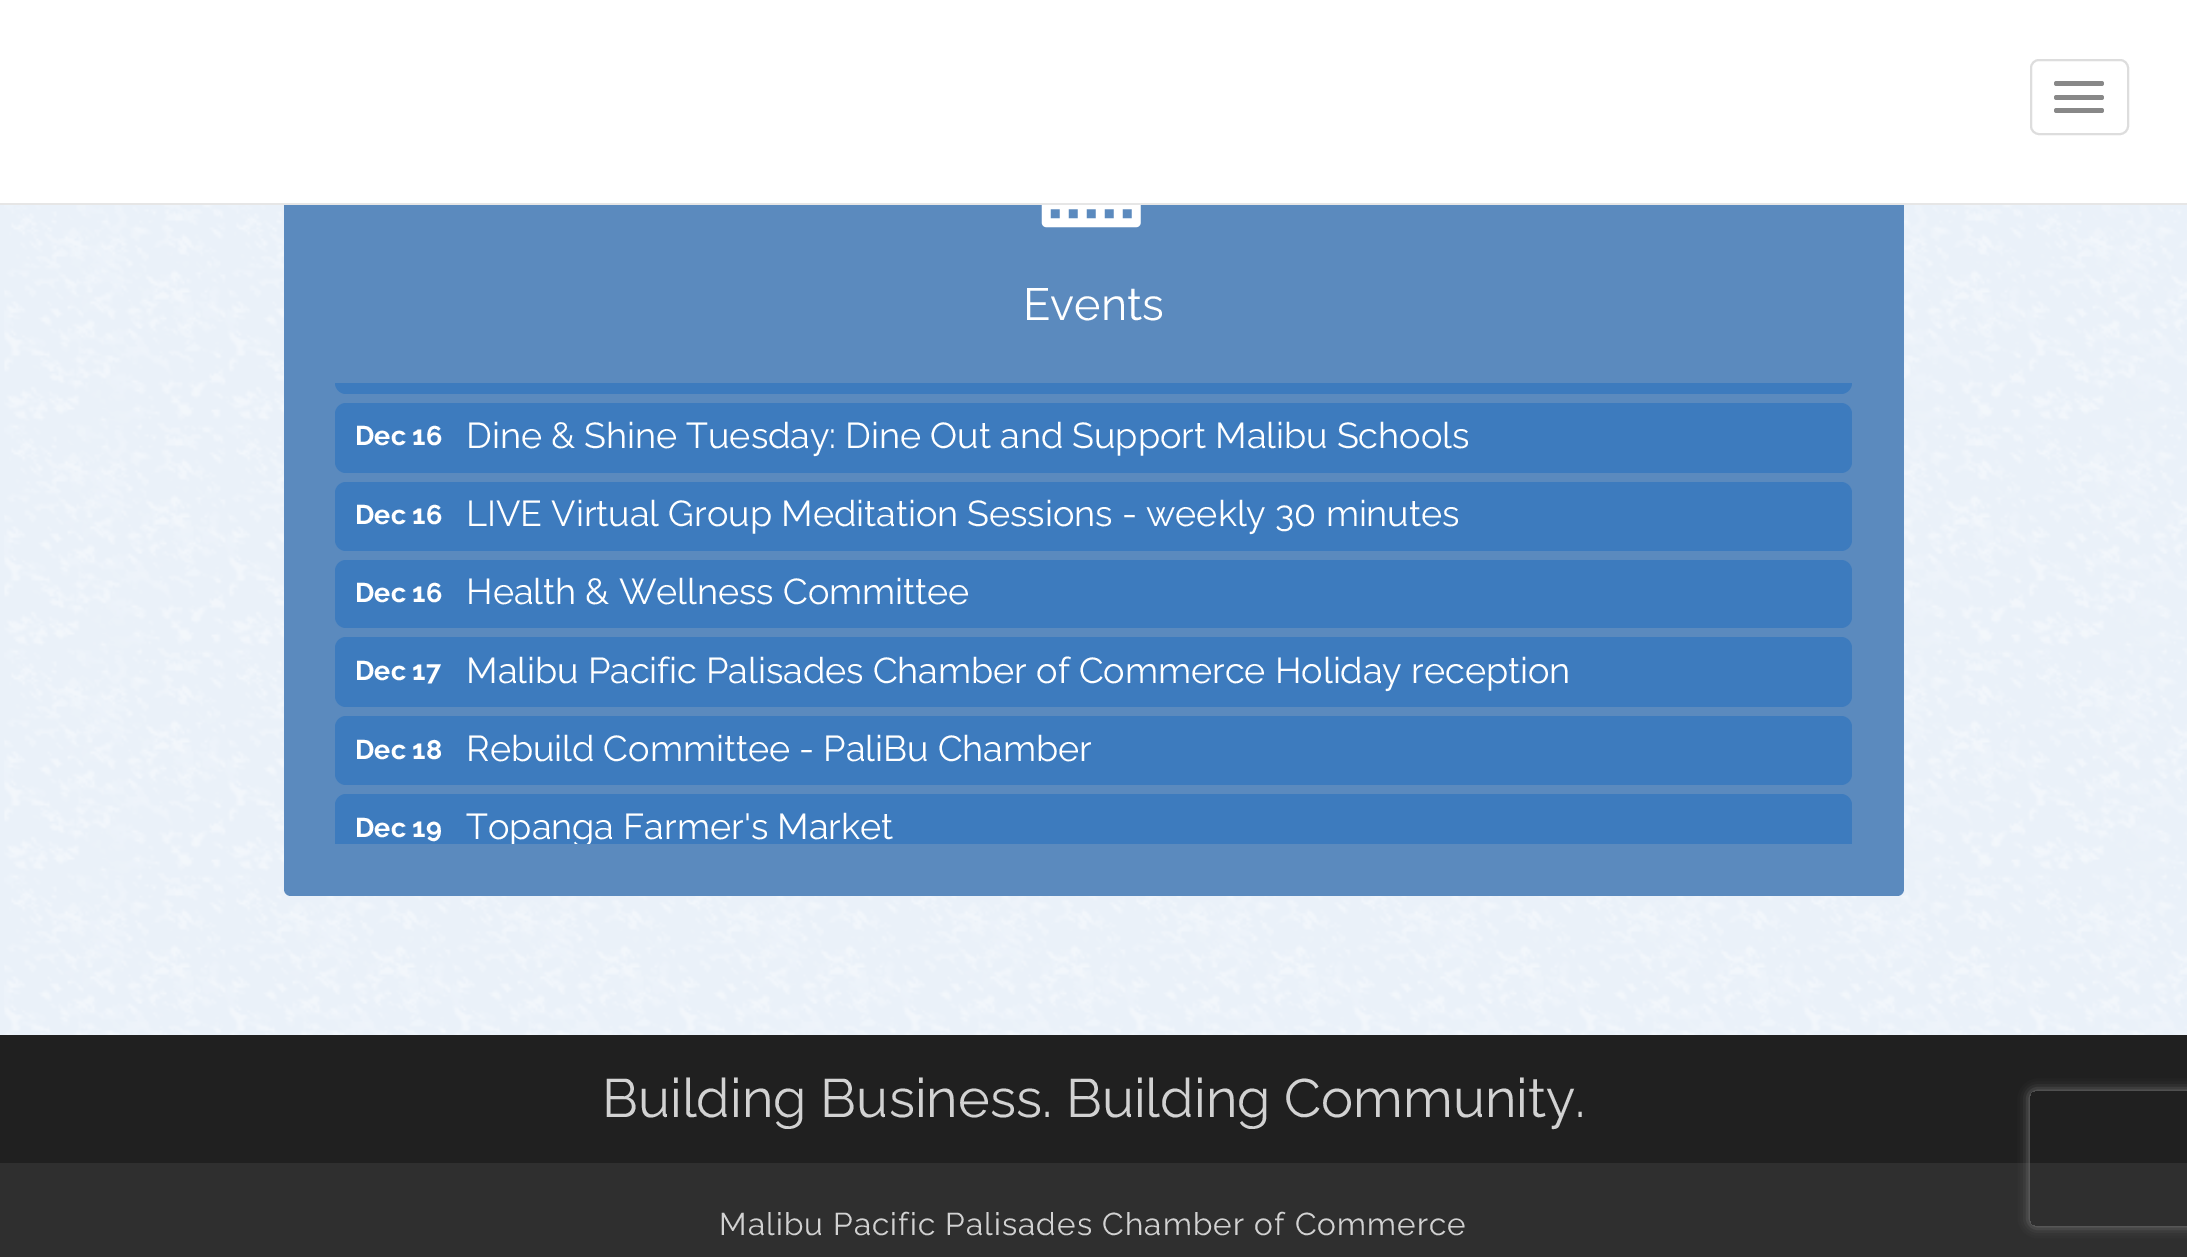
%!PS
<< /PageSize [2187 1257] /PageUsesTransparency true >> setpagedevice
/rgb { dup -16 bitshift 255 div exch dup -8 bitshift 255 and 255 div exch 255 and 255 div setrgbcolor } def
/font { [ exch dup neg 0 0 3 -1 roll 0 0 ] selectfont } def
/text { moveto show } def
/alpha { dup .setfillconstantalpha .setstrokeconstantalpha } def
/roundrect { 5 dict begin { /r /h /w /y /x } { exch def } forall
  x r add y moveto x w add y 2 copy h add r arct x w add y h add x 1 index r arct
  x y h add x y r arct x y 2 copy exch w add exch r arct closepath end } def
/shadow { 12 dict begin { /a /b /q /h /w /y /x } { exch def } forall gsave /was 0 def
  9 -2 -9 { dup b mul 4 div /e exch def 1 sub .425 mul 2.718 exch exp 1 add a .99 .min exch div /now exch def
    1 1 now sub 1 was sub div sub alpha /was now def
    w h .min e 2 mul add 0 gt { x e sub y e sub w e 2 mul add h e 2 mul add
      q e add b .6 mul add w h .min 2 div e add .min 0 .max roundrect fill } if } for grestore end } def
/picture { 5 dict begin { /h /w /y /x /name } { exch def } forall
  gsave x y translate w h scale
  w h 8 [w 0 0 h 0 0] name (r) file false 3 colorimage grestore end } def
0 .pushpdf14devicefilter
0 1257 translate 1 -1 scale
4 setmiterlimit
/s1 { /Raleway-Regular 45 font 16#FFFFFF rgb } def
/s2 { /Raleway-Bold 27 font 16#FFFFFF rgb } def
/s3 { /Raleway-Regular 36 font 16#FFFFFF rgb } def
/s4 { /Raleway-Regular 54 font 16#D2D2D2 rgb } def
16#EAF1F9 rgb
0 0 2187 1257 rectfill
(pic1.raw) 4 205 2183 830 picture
16#FFFFFF rgb
0 0 2187 203 rectfill
16#E6E6E6 rgb
0 203 2187 2 rectfill
16#DDDDDD rgb
2 setlinewidth
2031 60 97 74 8 roundrect stroke
16#888888 rgb
2054 81 50 5 2.5 roundrect fill
2054 95 50 5 2.5 roundrect fill
2054 108 50 5 2.5 roundrect fill
16#5B8ABE rgb
284 205 1620 126 rectfill
(pic2.raw) 1041 205 100 23 picture
s1
(Events) 1023 320 text
16#5B8ABE rgb
284 331 moveto 1904 331 lineto 1904 889 lineto 1904 893 1901 896 1897 896 curveto 291 896 lineto 287 896 284 893 284 889 curveto closepath fill
16#3D7BBE rgb
335 383 moveto 1852 383 lineto 1852 389 1847 394 1841 394 curveto 346 394 lineto 340 394 335 389 335 383 curveto closepath fill
335 403 1517 70 11 roundrect fill
s2
(Dec 16) 355 445 text
s3
(Dine & Shine Tuesday: Dine Out and Support Malibu Schools) 466 448 text
16#3D7BBE rgb
335 482 1517 69 11 roundrect fill
s2
(Dec 16) 355 524 text
s3
(LIVE Virtual Group Meditation Sessions - weekly 30 minutes) 466 526 text
16#3D7BBE rgb
335 560 1517 68 11 roundrect fill
s2
(Dec 16) 355 602 text
s3
(Health & Wellness Committee) 466 604 text
16#3D7BBE rgb
335 637 1517 70 11 roundrect fill
s2
(Dec 17) 355 680 text
s3
(Malibu Pacific Palisades Chamber of Commerce Holiday reception) 466 683 text
16#3D7BBE rgb
335 716 1517 69 11 roundrect fill
s2
(Dec 18) 355 759 text
s3
(Rebuild Committee - PaliBu Chamber) 466 761 text
16#3D7BBE rgb
346 794 moveto 1841 794 lineto 1847 794 1852 799 1852 805 curveto 1852 844 lineto 335 844 lineto 335 805 lineto 335 799 340 794 346 794 curveto closepath fill
s2
(Dec 19) 355 837 text
gsave
335 383 1517 461 rectclip
s3
(Topanga Farmer's Market) 466 839 text
grestore
16#202020 rgb
0 1035 2187 128 rectfill
s4
(Building Business. Building Community.) 602 1117 text
16#2F2F2F rgb
0 1163 2187 94 rectfill
/Raleway-Regular 31.5 font
16#D2D2D2 rgb
719 1235 moveto 1.1 0 (Malibu Pacific Palisades Chamber of Commerce) ashow
gsave
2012 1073 moveto 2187 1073 lineto 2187 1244 lineto 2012 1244 lineto closepath 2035 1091 moveto 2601 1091 lineto 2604 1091 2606 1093 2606 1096 curveto 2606 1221 lineto 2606 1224 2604 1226 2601 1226 curveto 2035 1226 lineto 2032 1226 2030 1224 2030 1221 curveto 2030 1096 lineto 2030 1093 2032 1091 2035 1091 curveto closepath eoclip newpath
16#808080 rgb
2030 1091 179 135 5 5.5 1 shadow
grestore
.poppdf14devicefilter showpage
